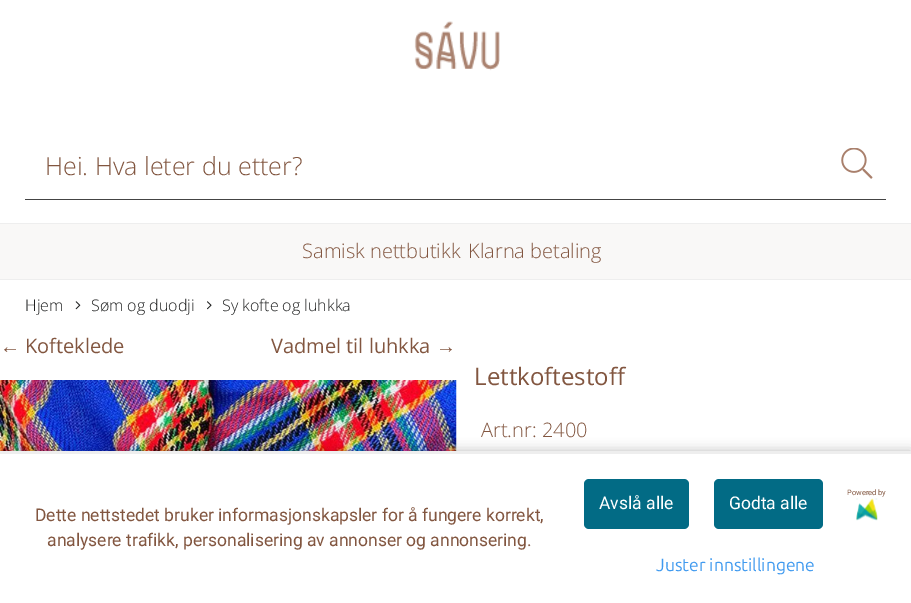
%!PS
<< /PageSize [911 603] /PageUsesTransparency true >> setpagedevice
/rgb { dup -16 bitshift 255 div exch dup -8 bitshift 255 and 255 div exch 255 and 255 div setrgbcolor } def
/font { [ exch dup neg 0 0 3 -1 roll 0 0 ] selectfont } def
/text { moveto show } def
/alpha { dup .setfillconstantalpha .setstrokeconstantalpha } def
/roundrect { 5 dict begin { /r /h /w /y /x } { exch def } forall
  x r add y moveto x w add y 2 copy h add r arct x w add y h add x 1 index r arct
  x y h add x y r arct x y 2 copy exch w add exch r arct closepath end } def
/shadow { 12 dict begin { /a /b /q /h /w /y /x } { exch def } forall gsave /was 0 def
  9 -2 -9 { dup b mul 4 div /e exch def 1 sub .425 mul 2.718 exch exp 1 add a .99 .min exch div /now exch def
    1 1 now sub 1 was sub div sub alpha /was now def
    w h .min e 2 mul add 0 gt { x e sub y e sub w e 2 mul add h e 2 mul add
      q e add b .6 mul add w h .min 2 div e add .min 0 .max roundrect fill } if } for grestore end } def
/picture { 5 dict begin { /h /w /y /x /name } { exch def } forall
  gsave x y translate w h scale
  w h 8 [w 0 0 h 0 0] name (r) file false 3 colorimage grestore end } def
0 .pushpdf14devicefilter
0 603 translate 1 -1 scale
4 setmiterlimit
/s1 { /OpenSans-Light 25 font 16#825640 rgb } def
/s2 { /OpenSans-Light 20 font 16#825640 rgb } def
/s3 { /OpenSans-Light 16 font 16#202121 rgb } def
/s4 { /LiberationSans-Regular 20 font 16#825640 rgb } def
/s5 { /OpenSans-Regular 20 font 16#825640 rgb } def
/s6 { /OpenSans-Regular 24 font 16#825640 rgb } def
/s7 { /Roboto-Regular 17.5 font 16#825640 rgb } def
/s8 { /Roboto-Regular 7.5 font 16#825640 rgb } def
/s9 { /Roboto-Regular 17.5 font 16#FFFFFF rgb } def
/s10 { /Ubuntu-Regular 17.5 font 16#409AEF rgb } def
16#FFFFFF rgb
0 0 911 603 rectfill
(pic1.raw) 414 21 86 50 picture
16#444444 rgb
25 199 861 1 rectfill
s1
(Hei. Hva leter du etter?) 45 175 text
(pic2.raw) 841 148 32 31 picture
16#F9F8F7 rgb
0 224 911 55 rectfill
16#EEEEEE rgb
0 223 911 1 rectfill
0 279 911 1 rectfill
s2
(Samisk nettbutikk) 302 258 text
(Klarna betaling) 468 258 text
s3
(Hjem) 25 311 text
(pic3.raw) 75 301 6 9 picture
(Søm og duodji) 91 311 text
(pic4.raw) 207 301 5 9 picture
(Sy kofte og luhkka) 222 311 text
s4
(←) 0 353 text
s5
(Kofteklede) 25 353 text
(Vadmel til luhkka) 271 353 text
s4
(→) 436 353 text
(pic5.raw) 0 380 457 71 picture
s6
(Lettkoftestoff) 474 385 text
s2
(Art.nr: 2400) 481 437 text
16#000000 rgb
0 451 911 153 0 6 0.25 shadow
16#FFFFFF rgb
0 454 911 149 rectfill
16#EEEEEE rgb
0 451 911 3 rectfill
s7
(Dette nettstedet bruker informasjonskapsler for å fungere korrekt,) 35 521 text
(analysere trafikk, personalisering av annonser og annonsering.) 47 546 text
s8
(Powered by) 847 495 text
(pic6.raw) 856 498 22 23 picture
16#026B85 rgb
584 479 105 50 5 roundrect fill
s9
(Avslå alle) 599 509 text
16#026B85 rgb
714 479 109 50 5 roundrect fill
s9
(Godta alle) 729 509 text
s10
(Juster innstillingene) 656 571 text
.poppdf14devicefilter showpage
